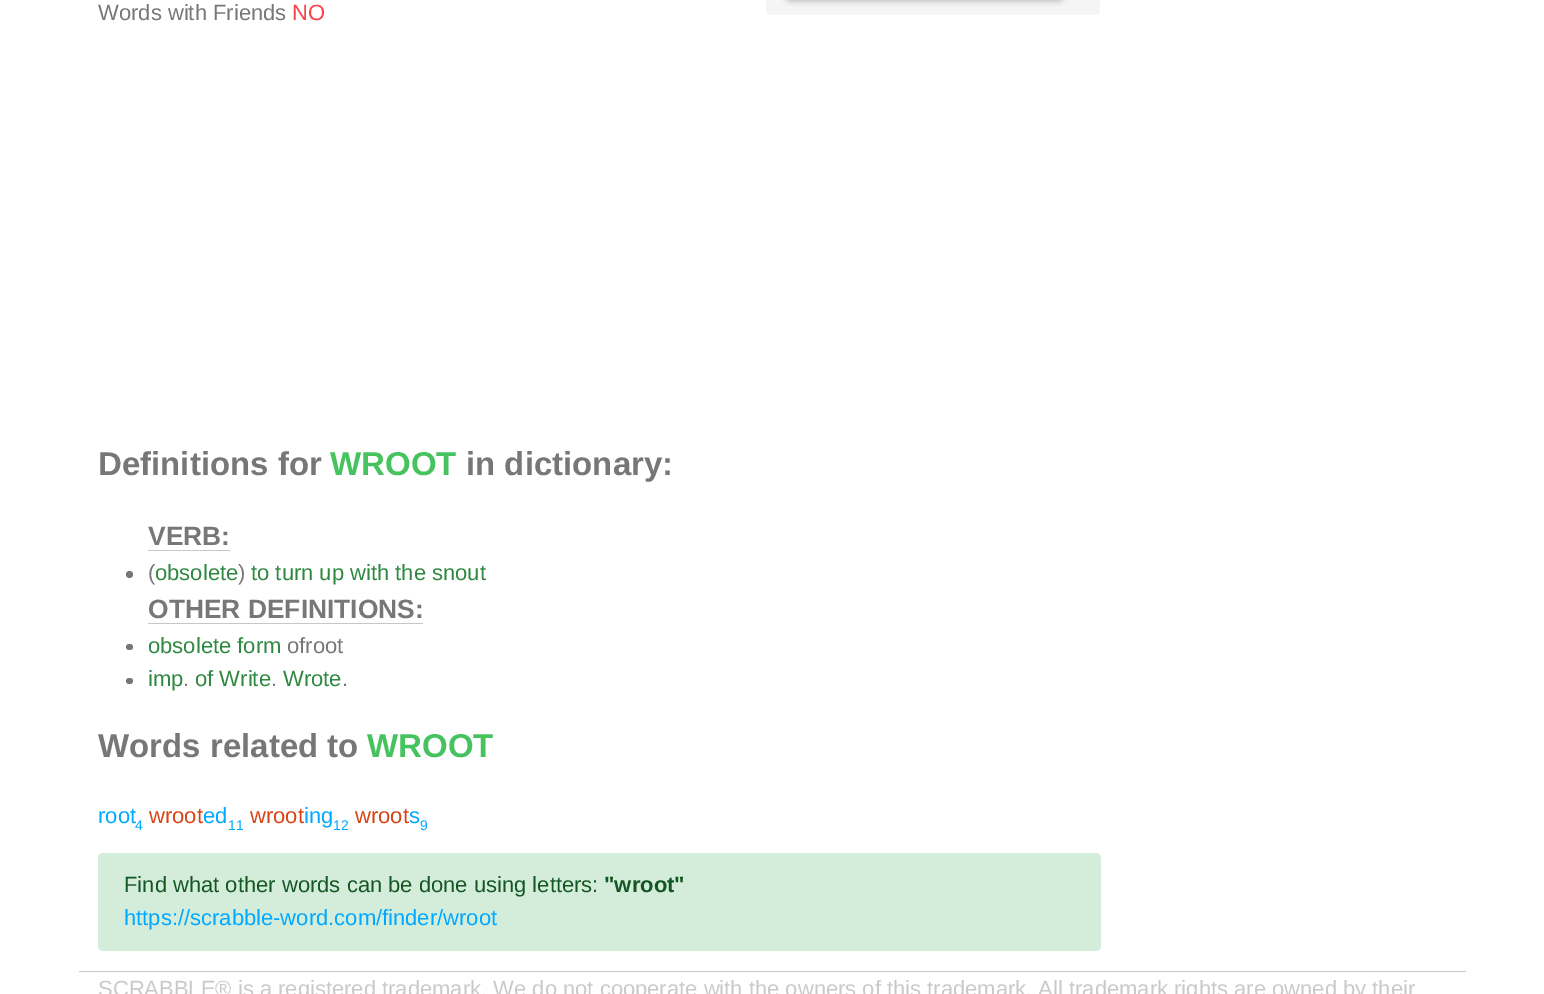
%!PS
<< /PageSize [1544 994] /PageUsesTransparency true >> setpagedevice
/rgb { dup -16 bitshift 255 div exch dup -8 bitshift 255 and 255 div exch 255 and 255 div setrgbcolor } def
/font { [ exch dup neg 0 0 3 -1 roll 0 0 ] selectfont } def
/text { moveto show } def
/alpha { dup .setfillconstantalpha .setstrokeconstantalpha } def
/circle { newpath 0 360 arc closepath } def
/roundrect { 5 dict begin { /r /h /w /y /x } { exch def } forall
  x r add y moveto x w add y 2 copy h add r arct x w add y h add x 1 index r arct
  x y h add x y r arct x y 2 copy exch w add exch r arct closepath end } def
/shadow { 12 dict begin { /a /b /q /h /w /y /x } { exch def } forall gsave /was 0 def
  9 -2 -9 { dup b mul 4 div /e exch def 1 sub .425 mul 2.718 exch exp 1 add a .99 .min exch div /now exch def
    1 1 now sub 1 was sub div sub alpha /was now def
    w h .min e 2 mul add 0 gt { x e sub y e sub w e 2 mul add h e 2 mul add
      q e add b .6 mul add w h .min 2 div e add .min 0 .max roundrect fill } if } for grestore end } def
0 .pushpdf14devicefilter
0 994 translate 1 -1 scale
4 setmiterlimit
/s1 { /LiberationSans-Regular 22 font 16#777777 rgb } def
/s2 { /LiberationSans-Regular 22 font 16#FA424A rgb } def
/s3 { /LiberationSans-Bold 33 font 16#777777 rgb } def
/s4 { /LiberationSans-Bold 33 font 16#46C35F rgb } def
/s5 { /LiberationSans-Bold 26.4 font 16#777777 rgb } def
/s6 { /LiberationSans-Regular 22 font 16#2E8840 rgb } def
/s7 { /LiberationSans-Regular 22 font 16#00A8FF rgb } def
/s8 { /LiberationSans-Regular 22 font 16#D84314 rgb } def
/s9 { /LiberationSans-Regular 14 font 16#00A8FF rgb } def
/s10 { /LiberationSans-Regular 22 font 16#155724 rgb } def
/s11 { /LiberationSans-Bold 22 font 16#155724 rgb } def
/s12 { /LiberationSans-Regular 22 font 16#C9C9C9 rgb } def
16#FFFFFF rgb
0 0 1544 994 rectfill
s1
(Words with Friends) 98 20 text
s2
(NO) 292 20 text
16#F5F5F5 rgb
766 -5 334 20 5 roundrect fill
16#000000 rgb
786 -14 277 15 5 3 0.26 shadow
s3
(Definitions for) 98 475 text
s4
(WROOT) 330 475 text
s3
(in dictionary:) 466 475 text
s5
(VERB:) 148 545 text
16#C7C7C7 rgb
148 550 82 1 rectfill
16#777777 rgb
129.5 574.5 3.5 circle fill
s1
(\() 148 580 text
s6
(obsolete) 155 580 text
s1
(\)) 238 580 text
s6
(to turn up with the snout) 251 580 text
s5
(OTHER DEFINITIONS:) 148 618 text
16#C7C7C7 rgb
148 623 275 1 rectfill
16#777777 rgb
126 644 7 6 3 roundrect fill
s6
(obsolete form) 148 653 text
s1
(ofroot) 287 653 text
126 678 7 6 3 roundrect fill
s6
(imp) 148 686 text
(of Write) 195 686 text
(Wrote) 283 686 text
s1
(.) 183 686 text
(.) 271 686 text
(.) 342 686 text
s3
(Words related to) 98 757 text
s4
(WROOT) 367 757 text
s7
(root) 98 823 text
s8
(wroot) 149 823 text
s7
(ed) 203 823 text
s8
(wroot) 250 823 text
s7
(ing) 304 823 text
s8
(wroot) 355 823 text
s7
(s) 409 823 text
s9
(4) 135 830 text
(11) 228 830 text
(12) 333 830 text
(9) 420 830 text
16#D4EDDA rgb
98 853 1003 98 5 roundrect fill
s10
(Find what other words can be done using letters:) 124 892 text
s11
("wroot") 604 892 text
s7
(https://scrabble-word.com/finder/wroot) 124 925 text
16#C7C7C7 rgb
79 971 1387 1 rectfill
s12
(SCRABBLE® is a registered trademark. We do not cooperate with the owners of this trademark. All trademark rights are owned by their) 98 996 text
.poppdf14devicefilter showpage
